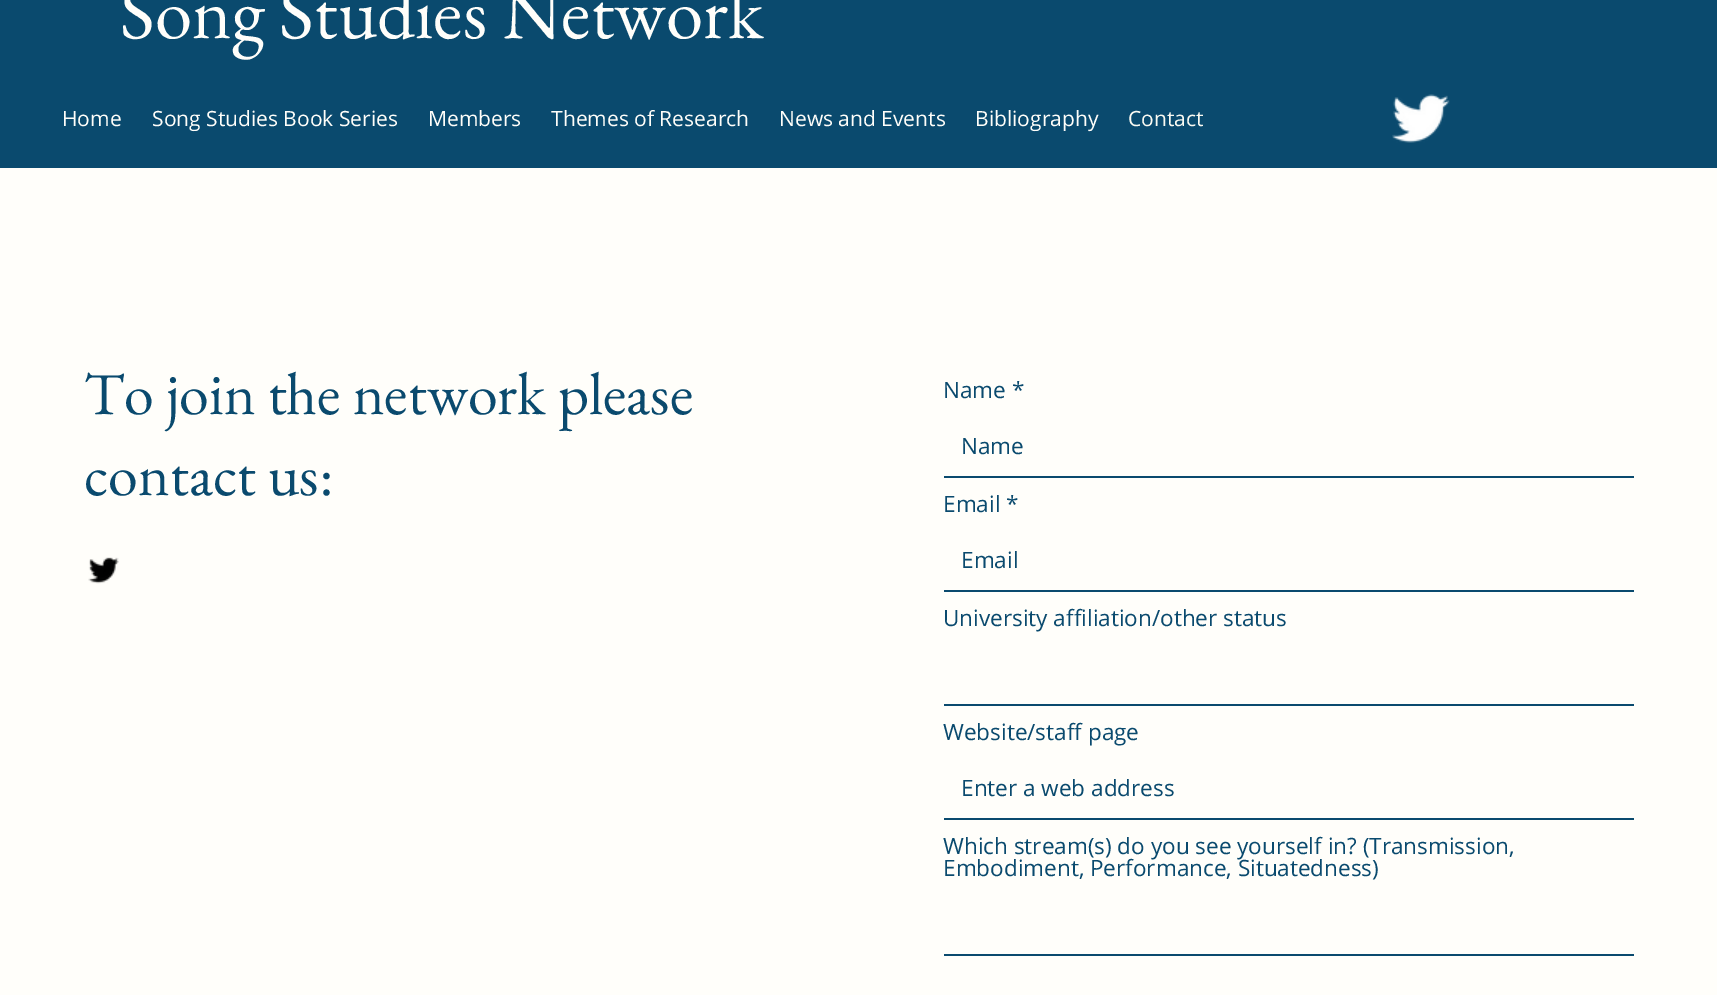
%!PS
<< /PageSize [1717 995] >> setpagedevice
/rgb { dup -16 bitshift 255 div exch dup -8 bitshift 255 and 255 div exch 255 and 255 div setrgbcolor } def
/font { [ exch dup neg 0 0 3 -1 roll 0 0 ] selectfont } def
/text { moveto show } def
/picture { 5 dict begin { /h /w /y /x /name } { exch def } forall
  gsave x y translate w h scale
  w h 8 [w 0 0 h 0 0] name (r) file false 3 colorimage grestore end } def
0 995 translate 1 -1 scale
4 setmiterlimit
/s1 { /EBGaramond-Regular 75 font 16#FFFEFA rgb } def
/s2 { /OpenSans-Regular 21 font 16#FFFEFA rgb } def
/s3 { /OpenSans-Regular 21 font 16#FAFAF2 rgb } def
/s4 { /EBGaramond-Regular 60 font 16#0A4A6E rgb } def
/s5 { /OpenSans-Regular 22.5 font 16#0A4A6E rgb } def
16#FFFEFA rgb
0 0 1717 995 rectfill
16#0A4A6E rgb
0 0 1717 168 rectfill
s1
(Song Studies Network) 120 38 text
s2
(Home) 62 126 text
(Song Studies Book Series) 152 126 text
(Members) 428 126 text
(Themes of Research) 551 126 text
(News and Events) 779 126 text
(Bibliography) 975 126 text
s3
(Contact) 1128 126 text
(pic1.raw) 1392 94 58 49 picture
s4
(To join the network please) 84 414 text
(contact us:) 84 495 text
(pic2.raw) 88 557 31 27 picture
s5
(Name *) 943 398 text
944 476 690 2 rectfill
(Name) 961 454 text
(Email *) 943 512 text
944 590 690 2 rectfill
(Email) 961 568 text
(University affiliation/other status) 943 626 text
944 704 690 2 rectfill
(Website/staff page) 943 740 text
944 818 690 2 rectfill
(Enter a web address) 961 796 text
(Which stream\(s\) do you see yourself in? \(Transmission,) 943 854 text
(Embodiment, Performance, Situatedness\)) 943 876 text
944 954 690 2 rectfill
showpage
